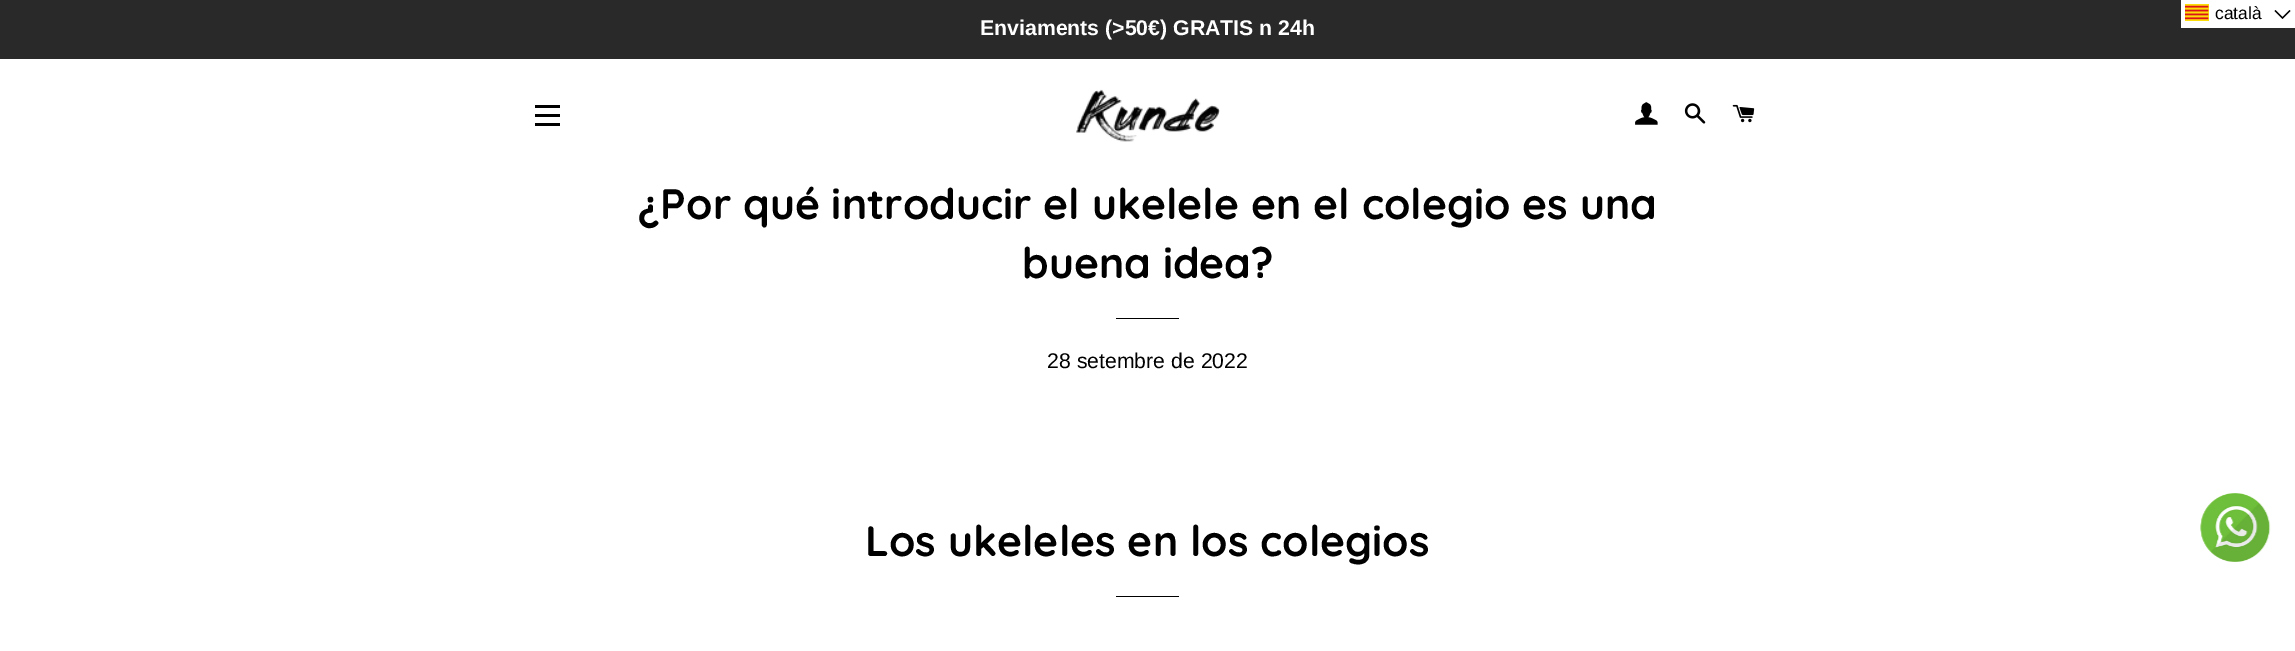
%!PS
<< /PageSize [2295 651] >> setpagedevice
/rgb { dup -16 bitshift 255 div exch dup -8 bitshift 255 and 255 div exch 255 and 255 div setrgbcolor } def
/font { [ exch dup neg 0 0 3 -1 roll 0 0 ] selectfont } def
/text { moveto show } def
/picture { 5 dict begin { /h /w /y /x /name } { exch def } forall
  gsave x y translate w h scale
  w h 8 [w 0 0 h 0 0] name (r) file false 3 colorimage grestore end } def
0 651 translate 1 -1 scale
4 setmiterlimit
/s1 { /LiberationSans-Regular 17.5 font 16#000000 rgb } def
/s2 { /LiberationSans-Bold 21.25 font 16#FFFFFF rgb } def
/s3 { /Quicksand-Bold 42.5 font 16#000000 rgb } def
/s4 { /LiberationSans-Regular 21.25 font 16#000000 rgb } def
16#FFFFFF rgb
0 0 2295 651 rectfill
16#292929 rgb
0 0 2295 59 rectfill
16#FFFFFF rgb
2181 0 114 28 rectfill
(pic1.raw) 2185 4 24 17 picture
s1
(català) 2215 19 text
1.2 setlinewidth
2275 10.5 moveto 2282.5 18 lineto 2290 10.5 lineto stroke
s2
(Enviaments \(>50€\) GRATIS n 24h) 980 35 text
16#000000 rgb
535 105 25 3 rectfill
535 114 25 3 rectfill
535 123 25 3 rectfill
(pic2.raw) 1076 89 144 53 picture
(pic3.raw) 1635 102 23 23 picture
(pic4.raw) 1684 103 22 21 picture
(pic5.raw) 1732 104 23 19 picture
s3
(¿Por qué introducir el ukelele en el colegio es una) 638 219 text
(buena idea?) 1022 278 text
1116 318 63 1 rectfill
s4
(28 setembre de 2022) 1047 368 text
s3
(Los ukeleles en los colegios) 865 556 text
1116 596 63 1 rectfill
(pic6.raw) 2200 493 71 69 picture
showpage
